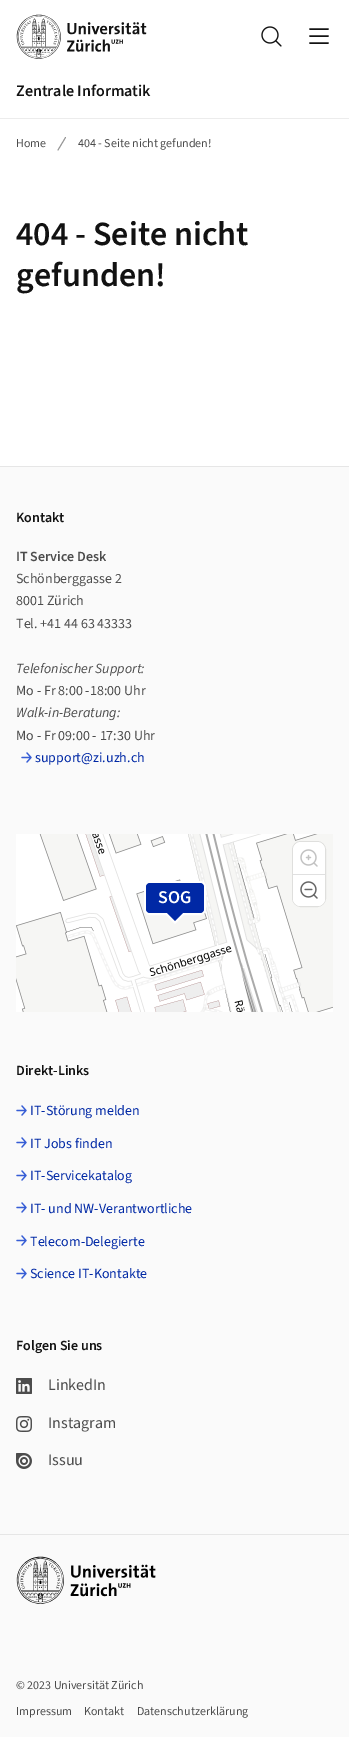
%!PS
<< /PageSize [349 1737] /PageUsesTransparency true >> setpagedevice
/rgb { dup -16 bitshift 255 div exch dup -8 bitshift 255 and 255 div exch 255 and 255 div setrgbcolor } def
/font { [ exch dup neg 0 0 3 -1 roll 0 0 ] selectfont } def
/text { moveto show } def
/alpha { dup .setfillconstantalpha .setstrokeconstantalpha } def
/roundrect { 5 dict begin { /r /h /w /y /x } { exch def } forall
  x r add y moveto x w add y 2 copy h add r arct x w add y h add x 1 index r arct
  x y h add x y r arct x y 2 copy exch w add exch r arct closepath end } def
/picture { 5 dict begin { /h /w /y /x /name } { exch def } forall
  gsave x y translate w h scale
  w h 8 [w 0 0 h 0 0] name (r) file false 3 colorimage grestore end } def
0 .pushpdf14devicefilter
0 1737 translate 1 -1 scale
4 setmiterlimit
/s1 { /SourceSans3-SemiBold 16 font 16#121212 rgb } def
/s2 { /SourceSans3-Regular 12 font 16#4C4C4C rgb } def
/s3 { /SourceSans3-SemiBold 34 font 16#121212 rgb } def
/s4 { /SourceSans3-SemiBold 14 font 16#121212 rgb } def
/s5 { /SourceSans3-SemiBold 14 font 16#4C4C4C rgb } def
/s6 { /SourceSans3-Regular 14 font 16#4C4C4C rgb } def
/s7 { /SourceSans3-Italic 14 font 16#4C4C4C rgb } def
/s8 { /SourceSans3-Regular 14 font 16#0028A5 rgb } def
/s9 { /SourceSans3-SemiBold 18 font 16#FFFFFF rgb } def
/s10 { /SourceSans3-Regular 16 font 16#4C4C4C rgb } def
16#FFFFFF rgb
0 0 349 1737 rectfill
16#ECECEC rgb
0 118 349 1 rectfill
(pic1.raw) 16 14 131 45 picture
(pic2.raw) 261 26 21 21 picture
16#121212 rgb
1.5 setlinewidth
1 setlinecap
1 setlinejoin
310 29 moveto 328 29 lineto 310 36 moveto 328 36 lineto 310 43 moveto 328 43 lineto stroke
s1
(Zentrale Informatik) 16 96 text
s2
(Home) 16 147 text
16#949494 rgb
0.9 setlinewidth
0 setlinejoin
58 150 moveto 65.5 137.5 lineto stroke
s2
(404 - Seite nicht gefunden!) 78 147 text
s3
(404 - Seite nicht) 16 245 text
(gefunden!) 16 286 text
16#FAFAFA rgb
0 467 349 1270 rectfill
16#E6E6E6 rgb
0 466 349 1 rectfill
s4
(Kontakt) 16 522 text
s5
(IT Service Desk) 16 561 text
s6
(Schönberggasse 2) 16 583 text
(8001 Zürich) 16 605 text
(Tel. +41 44 63 43333) 16 628 text
s7
(Telefonischer Support:) 16 673 text
s6
(Mo - Fr 8:00 -18:00 Uhr) 16 695 text
s7
(Walk-in-Beratung:) 16 717 text
s6
(Mo - Fr 09:00 - 17:30 Uhr) 16 740 text
(pic3.raw) 21 752 11 11 picture
s8
(support@zi.uzh.ch) 35 762 text
(pic4.raw) 16 834 209 107 picture
(pic5.raw) 225 834 108 107 picture
(pic6.raw) 16 941 209 71 picture
(pic7.raw) 225 941 108 71 picture
16#FFFFFF rgb
2 setlinewidth
0 setlinecap
145 882 60 32 5 roundrect stroke
16#0028A5 rgb
146 883 58 30 4 roundrect fill
s9
(SOG) 158 903 text
166 915 moveto 184 915 lineto 175 924 lineto closepath fill
16#0028A5 rgb
166 912 moveto 184 912 lineto 175 921 lineto closepath fill
0.1 alpha
16#121212 rgb
1 setlinewidth
292.5 841.5 33 65 8.5 roundrect stroke
1 alpha
16#FFFFFF rgb
293 842 32 64 8 roundrect fill
(pic8.raw) 300 849 18 18 picture
293 874 moveto 325 874 lineto 325 898 lineto 325 902.5 321.5 906 317 906 curveto 301 906 lineto 296.5 906 293 902.5 293 898 curveto closepath fill
(pic9.raw) 300 881 18 18 picture
16#E0E0E0 rgb
293 874 32 1 rectfill
s4
(Direkt-Links) 16 1075 text
(pic3.raw) 16 1105 11 11 picture
s8
(IT-Störung melden) 30 1115 text
(pic3.raw) 16 1137 11 11 picture
(IT Jobs finden) 30 1148 text
(pic3.raw) 16 1170 11 11 picture
(IT-Servicekatalog) 30 1180 text
(pic3.raw) 16 1202 11 11 picture
(IT- und NW-Verantwortliche) 30 1213 text
(pic3.raw) 16 1235 11 11 picture
(Telecom-Delegierte) 30 1246 text
(pic3.raw) 16 1268 11 11 picture
(Science IT-Kontakte) 30 1278 text
s4
(Folgen Sie uns) 16 1350 text
(pic10.raw) 16 1378 16 16 picture
s10
(LinkedIn) 48 1390 text
(pic11.raw) 16 1416 16 16 picture
(Instagram) 48 1428 text
(pic12.raw) 16 1453 16 16 picture
(Issuu) 48 1465 text
16#E6E6E6 rgb
0 1534 349 1 rectfill
(pic13.raw) 16 1556 140 48 picture
s2
(© 2023 Universität Zürich) 16 1689 text
(Impressum) 16 1715 text
(Kontakt) 84 1715 text
(Datenschutzerklärung) 137 1715 text
.poppdf14devicefilter showpage
